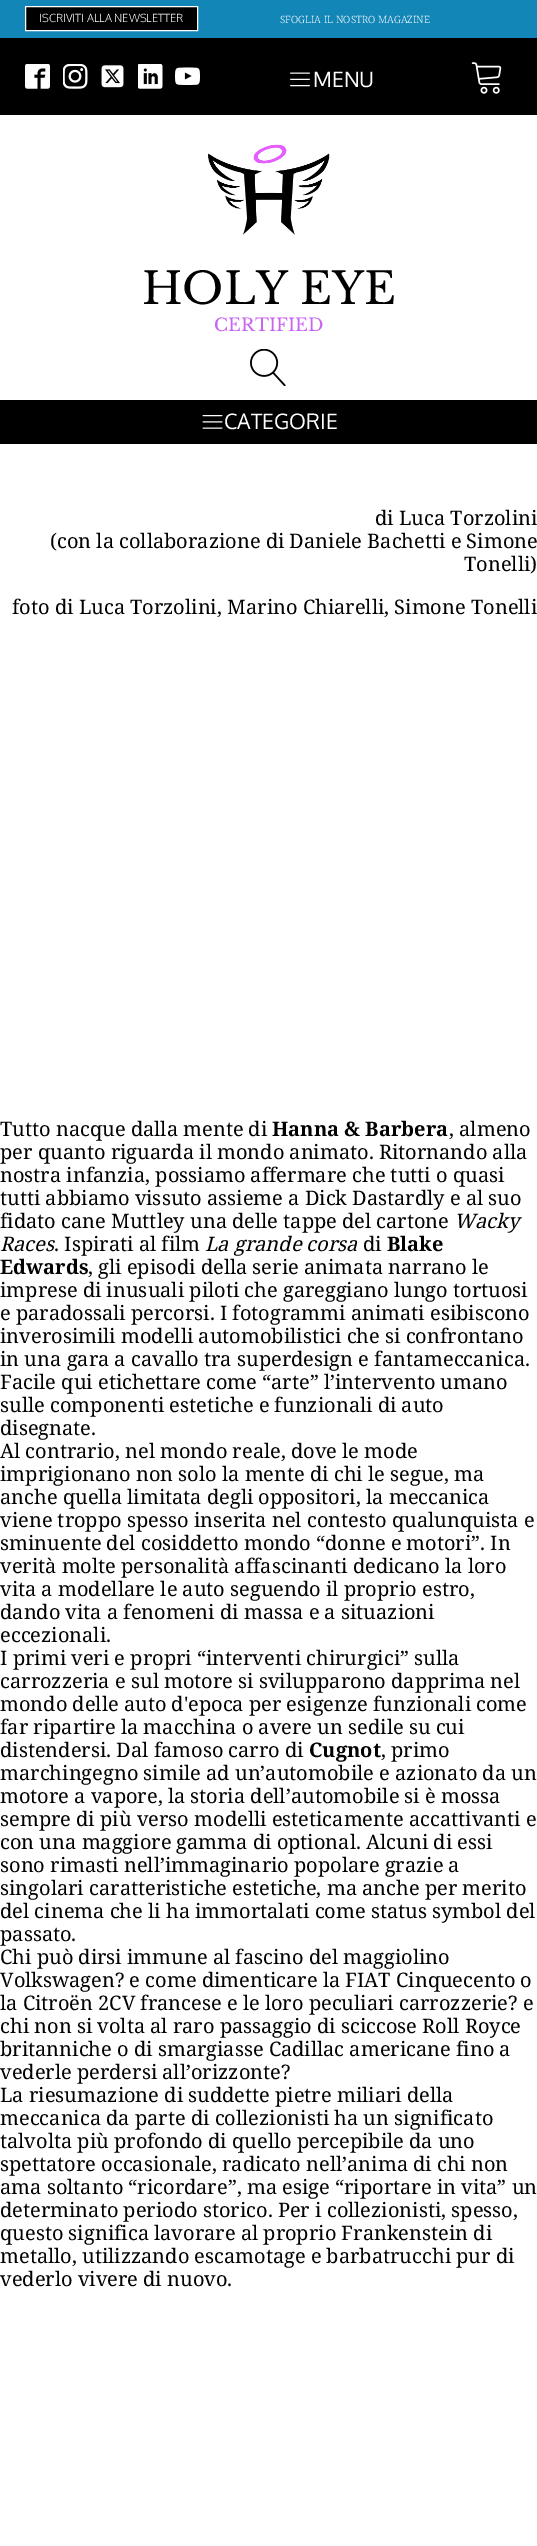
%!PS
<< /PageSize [537 2546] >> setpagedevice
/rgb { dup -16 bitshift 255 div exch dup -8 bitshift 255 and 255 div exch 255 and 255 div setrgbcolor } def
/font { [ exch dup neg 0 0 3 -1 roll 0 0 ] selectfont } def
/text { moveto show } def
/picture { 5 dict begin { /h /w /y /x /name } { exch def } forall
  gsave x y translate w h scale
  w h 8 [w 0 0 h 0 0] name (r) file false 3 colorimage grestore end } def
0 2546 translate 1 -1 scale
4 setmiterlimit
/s1 { /Oxygen-Light 11.25 font 16#FFFFFF rgb } def
/s2 { /NotoSerif-Light 10 font 16#FFFFFF rgb } def
/s3 { /Oxygen-Regular 21.25 font 16#FFFFFF rgb } def
/s4 { /LibreBaskerville-Regular 43.75 font 16#000000 rgb } def
/s5 { /LibreBaskerville-Regular 17.5 font 16#C963F2 rgb } def
/s6 { /NotoSerif-Regular 20 font 16#000000 rgb } def
/s7 { /NotoSerif-Bold 20 font 16#000000 rgb } def
/s8 { /NotoSerif-Italic 20 font 16#000000 rgb } def
16#FFFFFF rgb
0 0 537 2546 rectfill
16#1386B8 rgb
0 0 537 38 rectfill
16#000000 rgb
25.5 6.5 moveto 197.5 6.5 lineto 197.5 30.5 lineto 25.5 30.5 lineto closepath gsave fill grestore
16#FFFFFF rgb
stroke
s1
(ISCRIVITI ALLA NEWSLETTER) 39 22 text
s2
(SFOGLIA IL NOSTRO MAGAZINE) 280 23 text
16#000000 rgb
0 38 537 77 rectfill
(pic1.raw) 25 64 25 25 picture
(pic2.raw) 63 64 25 25 picture
(pic3.raw) 101 65 23 23 picture
(pic4.raw) 138 64 25 25 picture
(pic5.raw) 175 67 25 19 picture
(pic6.raw) 290 72 20 15 picture
s3
(MENU) 313 87 text
(pic7.raw) 471 62 31 32 picture
(pic8.raw) 208 144 122 91 picture
s4
(HOLY EYE) 142 304 text
s5
(CERTIFIED) 214 331 text
(pic9.raw) 250 349 36 37 picture
16#000000 rgb
0 400 537 44 rectfill
(pic10.raw) 202 415 21 14 picture
s3
(CATEGORIE) 224 429 text
s6
(di Luca Torzolini) 375 525 text
(\(con la collaborazione di Daniele Bachetti e Simone) 50 548 text
(Tonelli\)) 464 571 text
(foto di Luca Torzolini, Marino Chiarelli, Simone Tonelli) 12 614 text
(Tutto nacque dalla mente di) 0 1136 text
s7
(Hanna & Barbera) 272 1136 text
s6
(, almeno) 449 1136 text
(per quanto riguarda il mondo animato. Ritornando alla) 0 1159 text
(nostra infanzia, possiamo affermare che tutti o quasi) 0 1182 text
(tutti abbiamo vissuto assieme a Dick Dastardly e al suo) 0 1205 text
(fidato cane Muttley una delle tappe del cartone) 0 1228 text
s8
(Wacky) 454 1228 text
(Races) 0 1251 text
s6
(. Ispirati al film) 54 1251 text
s8
(La grande corsa) 205 1251 text
s6
(di) 363 1251 text
s7
(Blake) 387 1251 text
(Edwards) 0 1274 text
s6
(, gli episodi della serie animata narrano le) 88 1274 text
(imprese di inusuali piloti che gareggiano lungo tortuosi) 0 1297 text
(e paradossali percorsi. I fotogrammi animati esibiscono) 0 1320 text
(inverosimili modelli automobilistici che si confrontano) 0 1343 text
(in una gara a cavallo tra superdesign e fantameccanica.) 0 1366 text
(Facile qui etichettare come “arte” l’intervento umano) 0 1389 text
(sulle componenti estetiche e funzionali di auto) 0 1412 text
(disegnate.) 0 1435 text
(Al contrario, nel mondo reale, dove le mode) 0 1458 text
(imprigionano non solo la mente di chi le segue, ma) 0 1481 text
(anche quella limitata degli oppositori, la meccanica) 0 1504 text
(viene troppo spesso inserita nel contesto qualunquista e) 0 1527 text
(sminuente del cosiddetto mondo “donne e motori”. In) 0 1550 text
(verità molte personalità affascinanti dedicano la loro) 0 1573 text
(vita a modellare le auto seguendo il proprio estro,) 0 1596 text
(dando vita a fenomeni di massa e a situazioni) 0 1619 text
(eccezionali.) 0 1642 text
(I primi veri e propri “interventi chirurgici” sulla) 0 1665 text
(carrozzeria e sul motore si svilupparono dapprima nel) 0 1688 text
(mondo delle auto d'epoca per esigenze funzionali come) 0 1711 text
(far ripartire la macchina o avere un sedile su cui) 0 1734 text
(distendersi. Dal famoso carro di) 0 1757 text
s7
(Cugnot) 309 1757 text
s6
(, primo) 381 1757 text
(marchingegno simile ad un’automobile e azionato da un) 0 1780 text
(motore a vapore, la storia dell’automobile si è mossa) 0 1803 text
(sempre di più verso modelli esteticamente accattivanti e) 0 1826 text
(con una maggiore gamma di optional. Alcuni di essi) 0 1849 text
(sono rimasti nell’immaginario popolare grazie a) 0 1872 text
(singolari caratteristiche estetiche, ma anche per merito) 0 1895 text
(del cinema che li ha immortalati come status symbol del) 0 1918 text
(passato.) 0 1941 text
(Chi può dirsi immune al fascino del maggiolino) 0 1964 text
(Volkswagen? e come dimenticare la FIAT Cinquecento o) 0 1987 text
(la Citroën 2CV francese e le loro peculiari carrozzerie? e) 0 2010 text
(chi non si volta al raro passaggio di sciccose Roll Royce) 0 2033 text
(britanniche o di smargiasse Cadillac americane fino a) 0 2056 text
(vederle perdersi all’orizzonte?) 0 2079 text
(La riesumazione di suddette pietre miliari della) 0 2102 text
(meccanica da parte di collezionisti ha un significato) 0 2125 text
(talvolta più profondo di quello percepibile da uno) 0 2148 text
(spettatore occasionale, radicato nell’anima di chi non) 0 2171 text
(ama soltanto “ricordare”, ma esige “riportare in vita” un) 0 2194 text
(determinato periodo storico. Per i collezionisti, spesso,) 0 2217 text
(questo significa lavorare al proprio Frankenstein di) 0 2240 text
(metallo, utilizzando escamotage e barbatrucchi pur di) 0 2263 text
(vederlo vivere di nuovo.) 0 2286 text
showpage
